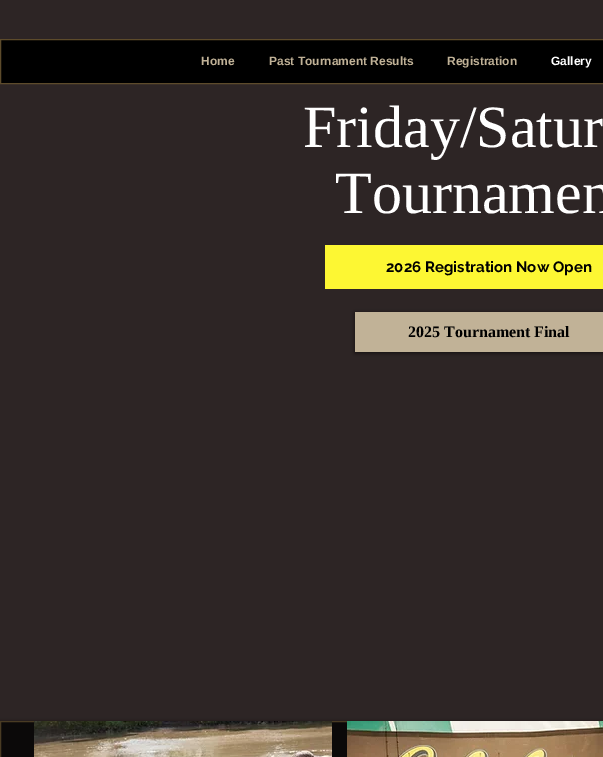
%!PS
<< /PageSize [603 757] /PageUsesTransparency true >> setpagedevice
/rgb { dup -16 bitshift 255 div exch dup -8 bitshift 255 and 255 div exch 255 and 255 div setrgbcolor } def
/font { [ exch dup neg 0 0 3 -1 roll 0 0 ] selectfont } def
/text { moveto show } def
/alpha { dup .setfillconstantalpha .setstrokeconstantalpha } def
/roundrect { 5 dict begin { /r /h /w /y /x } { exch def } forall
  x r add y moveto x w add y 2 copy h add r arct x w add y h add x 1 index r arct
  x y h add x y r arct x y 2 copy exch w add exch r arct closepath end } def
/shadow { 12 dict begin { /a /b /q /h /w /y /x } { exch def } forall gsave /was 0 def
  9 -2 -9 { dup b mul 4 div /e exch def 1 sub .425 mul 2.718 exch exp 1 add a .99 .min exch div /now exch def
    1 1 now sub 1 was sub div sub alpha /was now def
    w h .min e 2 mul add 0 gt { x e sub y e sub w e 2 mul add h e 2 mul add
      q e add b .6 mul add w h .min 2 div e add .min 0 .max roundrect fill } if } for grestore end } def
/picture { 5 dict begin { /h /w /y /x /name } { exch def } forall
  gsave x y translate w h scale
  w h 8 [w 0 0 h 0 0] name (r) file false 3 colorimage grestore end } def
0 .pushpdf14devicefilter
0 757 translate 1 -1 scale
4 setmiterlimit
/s1 { /LiberationSans-Bold 12 font 16#C1B297 rgb } def
/s2 { /LiberationSans-Bold 12 font 16#FFFFFF rgb } def
/s3 { /LiberationSerif-Regular 60 font 16#FFFFFF rgb } def
/s4 { /Raleway-Bold 15 font 16#000000 rgb } def
/s5 { /LiberationSerif-Bold 16 font 16#000000 rgb } def
16#2D2525 rgb
0 0 603 757 rectfill
16#000000 rgb
0.5 39.5 moveto 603.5 39.5 lineto 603.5 83.5 lineto 0.5 83.5 lineto closepath gsave fill grestore
16#5D4B2B rgb
stroke
s1
(Home) 201 65 text
(Past Tournament Results) 269 65 text
(Registration) 447 65 text
s2
(Gallery) 551 65 text
s3
(Friday/Satur) 303 147 text
(Tournamen) 335 213 text
16#FDF733 rgb
325 245 278 44 rectfill
s4
(2026 Registration Now Open) 386 272 text
355 313 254 40 0 2 0.6 shadow
16#C1B297 rgb
355 312 248 40 rectfill
s5
(2025 Tournament Final) 408 337 text
0 722 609 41 0 2 0.6 shadow
16#0B0909 rgb
1 722 346 35 rectfill
16#493B23 rgb
0.5 721.5 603 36 rectstroke
(pic1.raw) 34 721 298 36 picture
(pic2.raw) 347 721 256 36 picture
.poppdf14devicefilter showpage
